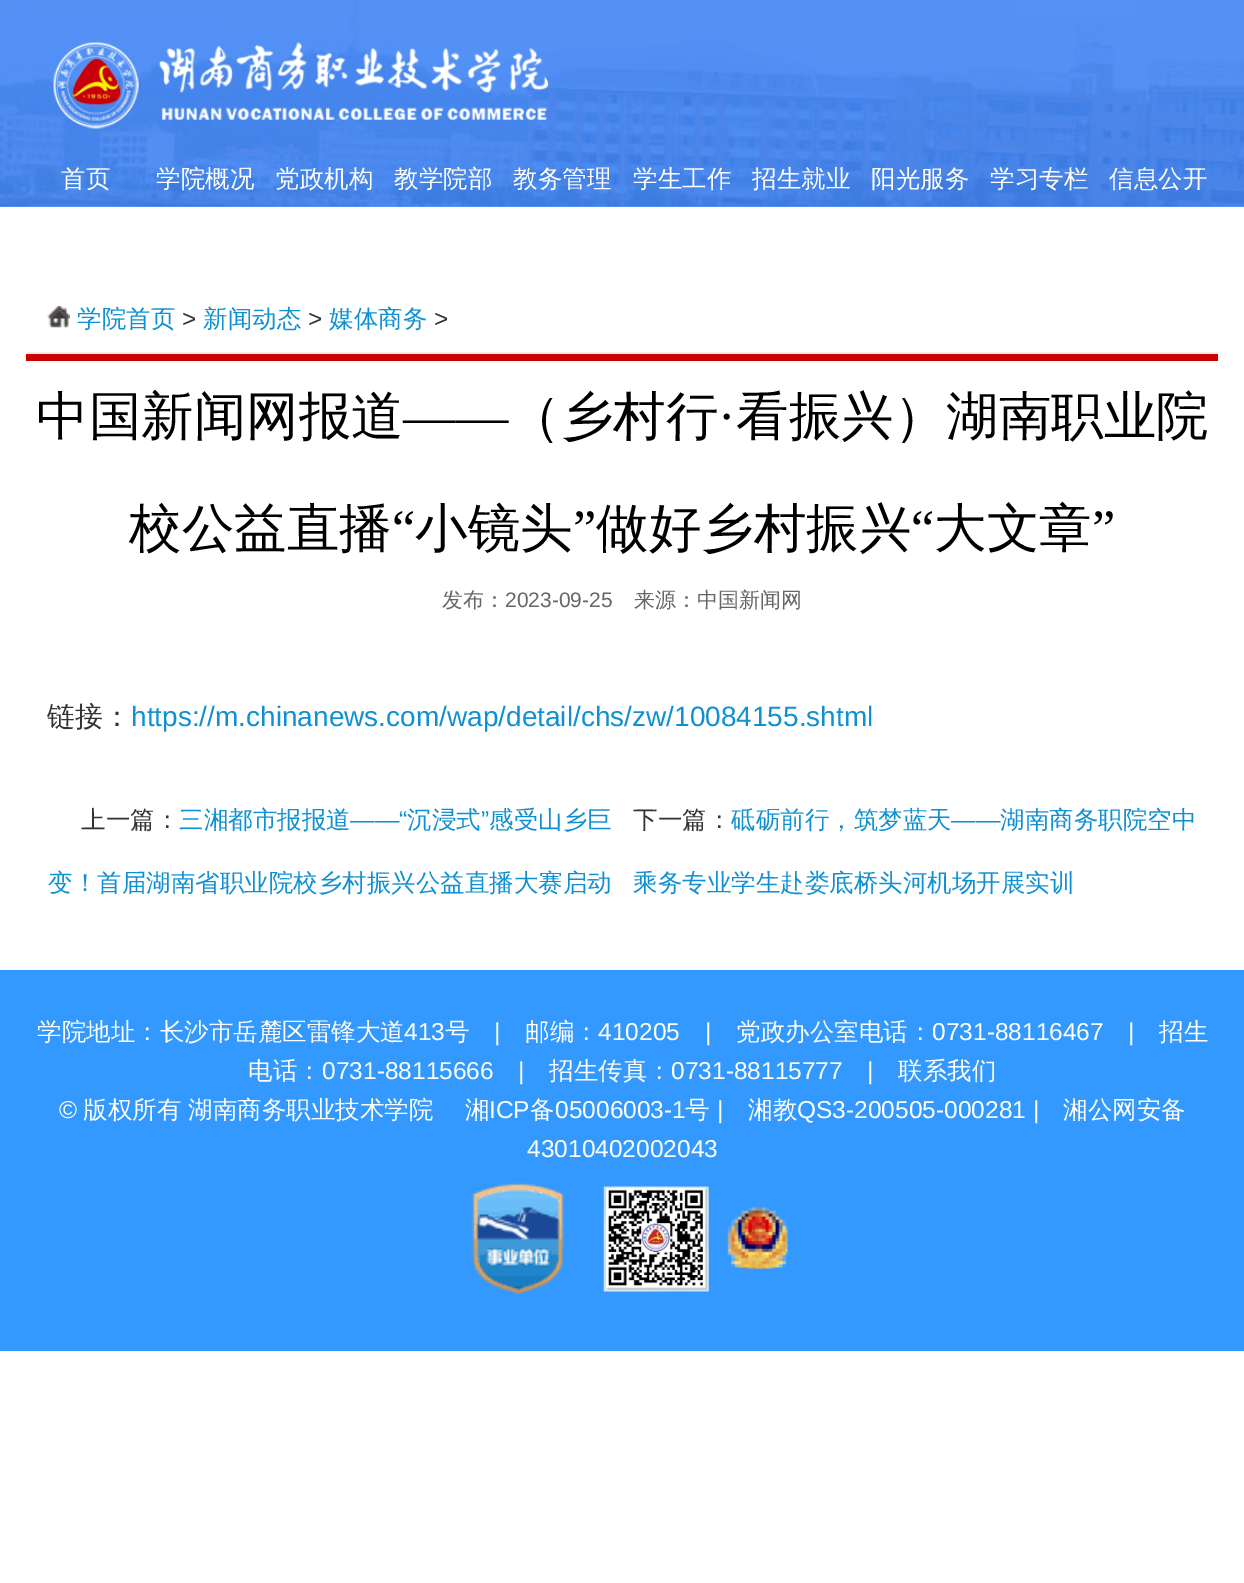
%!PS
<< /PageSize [1244 1583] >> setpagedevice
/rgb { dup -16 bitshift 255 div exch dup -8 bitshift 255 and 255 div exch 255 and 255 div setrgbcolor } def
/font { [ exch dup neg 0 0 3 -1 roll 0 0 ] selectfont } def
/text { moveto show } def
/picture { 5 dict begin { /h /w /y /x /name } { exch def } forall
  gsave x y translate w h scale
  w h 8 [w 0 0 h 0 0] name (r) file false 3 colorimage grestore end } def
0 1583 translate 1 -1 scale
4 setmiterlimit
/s1 { /WenQuanYiZenHei-Medium 24.5 font 16#FFFFFF rgb } def
/s2 { /WenQuanYiZenHei-Medium 24.5 font 16#0E90D2 rgb } def
/s3 { /LiberationSans-Regular 24.5 font 16#333333 rgb } def
/s4 { /WenQuanYiZenHei-Medium 52.5 font 16#000000 rgb } def
/s5 { /LiberationSerif-Regular 52.5 font 16#000000 rgb } def
/s6 { /WenQuanYiZenHei-Medium 21 font 16#666666 rgb } def
/s7 { /LiberationSans-Regular 21 font 16#666666 rgb } def
/s8 { /WenQuanYiZenHei-Medium 28 font 16#333333 rgb } def
/s9 { /LiberationSans-Regular 28 font 16#0E90D2 rgb } def
/s10 { /WenQuanYiZenHei-Medium 24.5 font 16#333333 rgb } def
/s11 { /LiberationSans-Regular 24.5 font 16#0E90D2 rgb } def
/s12 { /LiberationSans-Regular 24.5 font 16#FFFFFF rgb } def
16#FFFFFF rgb
0 0 1244 1583 rectfill
16#6699FF rgb
0 206 1244 1 rectfill
(pic1.raw) 0 0 1244 207 picture
(pic2.raw) 53 42 496 87 picture
s1
(首页) 61 187 text
(学院概况) 156 187 text
(党政机构) 275 187 text
(教学院部) 394 187 text
(教务管理) 513 187 text
(学生工作) 633 187 text
(招生就业) 752 187 text
(阳光服务) 871 187 text
(学习专栏) 990 187 text
(信息公开) 1109 187 text
16#EDEDED rgb
26 352 1192 2 rectfill
(pic3.raw) 47 306 23 22 picture
s2
(学院首页) 77 327 text
s3
(>) 182 327 text
s2
(新闻动态) 203 327 text
s3
(>) 308 327 text
s2
(媒体商务) 329 327 text
s3
(>) 434 327 text
16#CC0000 rgb
26 354 1192 7 rectfill
s4
(中国新闻网报道) 36 434 text
(（乡村行) 508 434 text
s5
(·) 718 434 text
s4
(看振兴）湖南职业院) 736 434 text
s5
(——) 403 434 text
s4
(校公益直播) 129 546 text
s5
(“) 392 546 text
s4
(小镜头) 415 546 text
s5
(”) 573 546 text
s4
(做好乡村振兴) 596 546 text
s5
(“) 911 546 text
s4
(大文章) 934 546 text
s5
(”) 1092 546 text
s6
(发布：) 442 607 text
s7
(2023-09-25) 505 607 text
s6
(来源：中国新闻网) 634 607 text
s8
(链接：) 47 726 text
s9
(https://m.chinanews.com/wap/detail/chs/zw/10084155.shtml) 131 726 text
s10
(上一篇：) 81 828 text
s2
(三湘都市报报道) 179 828 text
s11
(——“) 350 828 text
s2
(沉浸式) 407 828 text
s11
(”) 481 828 text
s2
(感受山乡巨) 489 828 text
(变！首届湖南省职业院校乡村振兴公益直播大赛启动) 48 891 text
s10
(下一篇：) 633 828 text
s2
(砥砺前行，筑梦蓝天) 731 828 text
s11
(——) 951 828 text
s2
(湖南商务职院空中) 1000 828 text
(乘务专业学生赴娄底桥头河机场开展实训) 633 891 text
16#3399FF rgb
0 970 1244 381 rectfill
s1
(学院地址：长沙市岳麓区雷锋大道) 37 1040 text
s12
(413) 404 1040 text
s1
(号) 445 1040 text
s12
(|) 494 1040 text
s1
(邮编：) 525 1040 text
s12
(410205) 598 1040 text
(|) 705 1040 text
s1
(党政办公室电话：) 736 1040 text
s12
(0731-88116467) 932 1040 text
(|) 1128 1040 text
s1
(招生) 1159 1040 text
(电话：) 248 1079 text
s12
(0731-88115666) 322 1079 text
(|) 518 1079 text
s1
(招生传真：) 549 1079 text
s12
(0731-88115777) 671 1079 text
(|) 867 1079 text
s1
(联系我们) 898 1079 text
s12
(©) 59 1118 text
s1
(版权所有 湖南商务职业技术学院) 83 1118 text
(湘) 465 1118 text
s12
(ICP) 489 1118 text
s1
(备) 530 1118 text
s12
(05006003-1) 555 1118 text
s1
(号) 685 1118 text
s12
(|) 717 1118 text
s1
(湘教) 748 1118 text
s12
(QS3-200505-000281 |) 797 1118 text
s1
(湘公网安备) 1063 1118 text
s12
(43010402002043) 527 1157 text
(pic4.raw) 472 1182 92 114 picture
(pic5.raw) 603 1186 106 106 picture
(pic6.raw) 727 1207 61 62 picture
showpage
